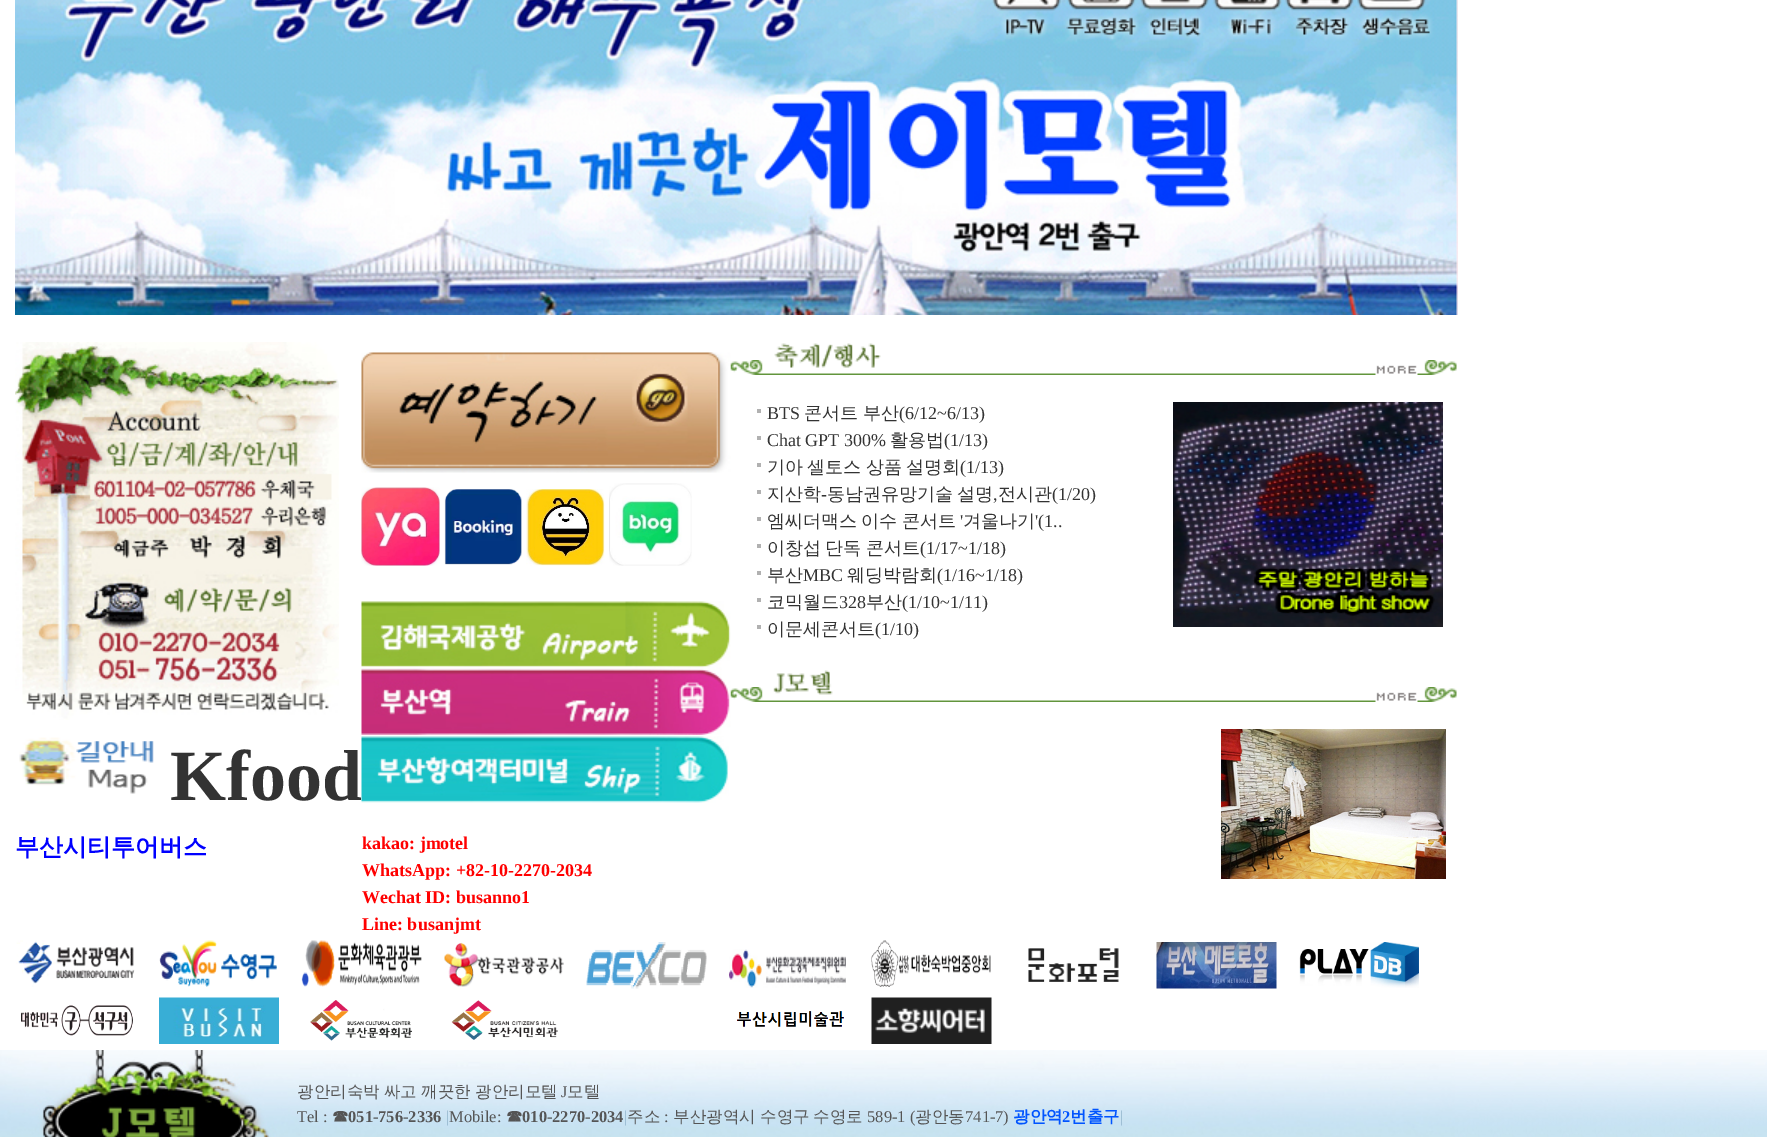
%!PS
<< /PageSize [1767 1137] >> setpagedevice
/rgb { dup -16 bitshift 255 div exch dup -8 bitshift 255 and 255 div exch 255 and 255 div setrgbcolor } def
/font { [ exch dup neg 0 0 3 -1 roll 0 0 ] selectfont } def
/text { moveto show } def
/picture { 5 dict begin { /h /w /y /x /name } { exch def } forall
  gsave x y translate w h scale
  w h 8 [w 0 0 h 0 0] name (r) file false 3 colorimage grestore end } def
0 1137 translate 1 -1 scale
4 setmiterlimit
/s1 { /LiberationSerif-Regular 18 font 16#333333 rgb } def
/s2 { /WenQuanYiZenHei-Medium 18 font 16#333333 rgb } def
/s3 { /LiberationSerif-Bold 72 font 16#333333 rgb } def
/s4 { /WenQuanYiZenHei-Bold 24 font 16#0000FF rgb } def
/s5 { /LiberationSerif-Bold 18 font 16#FF0000 rgb } def
/s6 { /LiberationSerif-Regular 16.5 font 16#555555 rgb } def
/s7 { /WenQuanYiZenHei-Medium 16.5 font 16#555555 rgb } def
/s8 { /WenQuanYiZenHei-Bold 16.5 font 16#555555 rgb } def
/s9 { /LiberationSerif-Bold 16.5 font 16#555555 rgb } def
/s10 { /LiberationSerif-Regular 16.5 font 16#90B3CB rgb } def
/s11 { /WenQuanYiZenHei-Bold 16.5 font 16#0054FF rgb } def
/s12 { /LiberationSerif-Bold 16.5 font 16#0054FF rgb } def
16#FFFFFF rgb
0 0 1767 1137 rectfill
(pic1.raw) 15 0 1443 315 picture
(pic2.raw) 730 360 727 15 picture
(pic3.raw) 774 343 107 25 picture
(pic4.raw) 1375 365 43 10 picture
16#B1B1B1 rgb
757 409 4 4 rectfill
s1
(BTS) 767 419 text
s2
(콘서트 부산) 804 419 text
s1
(\(6/12~6/13\)) 899 419 text
16#B1B1B1 rgb
757 436 4 4 rectfill
s1
(Chat GPT 300%) 767 446 text
s2
(활용법) 890 446 text
s1
(\(1/13\)) 944 446 text
16#B1B1B1 rgb
757 463 4 4 rectfill
/WenQuanYiZenHei-Medium 18 font
16#333333 rgb
767 473 moveto -1 0 32 (기아 셀토스 상품 설명회) widthshow
s1
(\(1/13\)) 960 473 text
16#B1B1B1 rgb
757 490 4 4 rectfill
s2
(지산학) 767 500 text
s1
(-) 821 500 text
/WenQuanYiZenHei-Medium 18 font
827 500 moveto -1 0 32 (동남권유망기술 설명) widthshow
(전시관) 998 500 text
s1
(\(1/20\)) 1052 500 text
(,) 993 500 text
16#B1B1B1 rgb
757 517 4 4 rectfill
/WenQuanYiZenHei-Medium 18 font
16#333333 rgb
767 527 moveto -1 0 32 (엠씨더맥스 이수 콘서트) widthshow
s1
(') 960 527 text
s2
(겨울나기) 963 527 text
s1
('\(1..) 1035 527 text
16#B1B1B1 rgb
757 544 4 4 rectfill
/WenQuanYiZenHei-Medium 18 font
16#333333 rgb
767 554 moveto -1 0 32 (이창섭 단독 콘서트) widthshow
s1
(\(1/17~1/18\)) 920 554 text
16#B1B1B1 rgb
757 571 4 4 rectfill
s2
(부산) 767 581 text
s1
(MBC) 803 581 text
s2
(웨딩박람회) 847 581 text
s1
(\(1/16~1/18\)) 937 581 text
16#B1B1B1 rgb
757 598 4 4 rectfill
s2
(코믹월드) 767 608 text
s1
(328) 839 608 text
s2
(부산) 866 608 text
s1
(\(1/10~1/11\)) 902 608 text
16#B1B1B1 rgb
757 625 4 4 rectfill
s2
(이문세콘서트) 767 635 text
s1
(\(1/10\)) 875 635 text
(pic5.raw) 1173 402 270 225 picture
(pic2.raw) 730 687 727 15 picture
(pic6.raw) 773 670 60 25 picture
(pic4.raw) 1375 692 43 10 picture
(pic7.raw) 1221 729 225 150 picture
(pic8.raw) 15 342 324 378 picture
(pic9.raw) 19 737 135 57 picture
s3
(Kfood) 170 800 text
s4
(부산시티투어버스) 15 855 text
(pic10.raw) 361 352 370 121 picture
(pic11.raw) 361 487 79 79 picture
(pic12.raw) 444 489 78 76 picture
(pic13.raw) 526 489 79 77 picture
(pic14.raw) 609 483 83 83 picture
(pic15.raw) 361 601 370 67 picture
(pic16.raw) 361 667 370 68 picture
(pic17.raw) 361 736 368 67 picture
s5
(kakao: jmotel) 362 849 text
(WhatsApp: +82-10-2270-2034) 362 876 text
(Wechat ID: busanno1) 362 903 text
(Line: busanjmt) 362 930 text
(pic18.raw) 16 940 119 47 picture
(pic19.raw) 159 940 118 47 picture
(pic20.raw) 301 940 121 47 picture
(pic21.raw) 444 942 120 45 picture
(pic22.raw) 586 942 121 47 picture
(pic23.raw) 729 949 117 39 picture
(pic24.raw) 871 940 120 47 picture
(pic25.raw) 1028 948 91 34 picture
(pic26.raw) 1156 942 121 47 picture
(pic27.raw) 1299 942 120 46 picture
(pic28.raw) 21 1005 112 31 picture
(pic29.raw) 159 997 120 47 picture
(pic30.raw) 310 1000 102 41 picture
(pic31.raw) 451 1000 107 40 picture
(pic32.raw) 736 1011 108 16 picture
(pic33.raw) 871 997 121 47 picture
(pic34.raw) 0 1050 1455 87 picture
/WenQuanYiZenHei-Medium 16.5 font
16#555555 rgb
297 1097 moveto -0.5 0 32 (광안리숙박 싸고 깨끗한 광안리모텔) widthshow
s6
(J) 561 1097 text
s7
(모텔) 567 1097 text
s6
(Tel :) 297 1122 text
s8
(☎) 332 1122 text
s9
(051-756-2336) 348 1122 text
s10
(|) 446 1122 text
s6
(Mobile:) 449 1122 text
s8
(☎) 506 1122 text
s9
(010-2270-2034) 522 1122 text
s10
(|) 624 1122 text
s7
(주소) 627 1122 text
s6
(:) 664 1122 text
s7
(부산광역시) 673 1122 text
(수영구) 760 1122 text
(수영로) 813 1122 text
s6
(589-1 \() 867 1122 text
s7
(광안동) 915 1122 text
s6
(741-7\)) 965 1122 text
s11
(광안역) 1013 1122 text
s12
(2) 1062 1122 text
s11
(번출구) 1070 1122 text
s10
(|) 1120 1122 text
(pic35.raw) 1455 1050 312 87 picture
showpage
